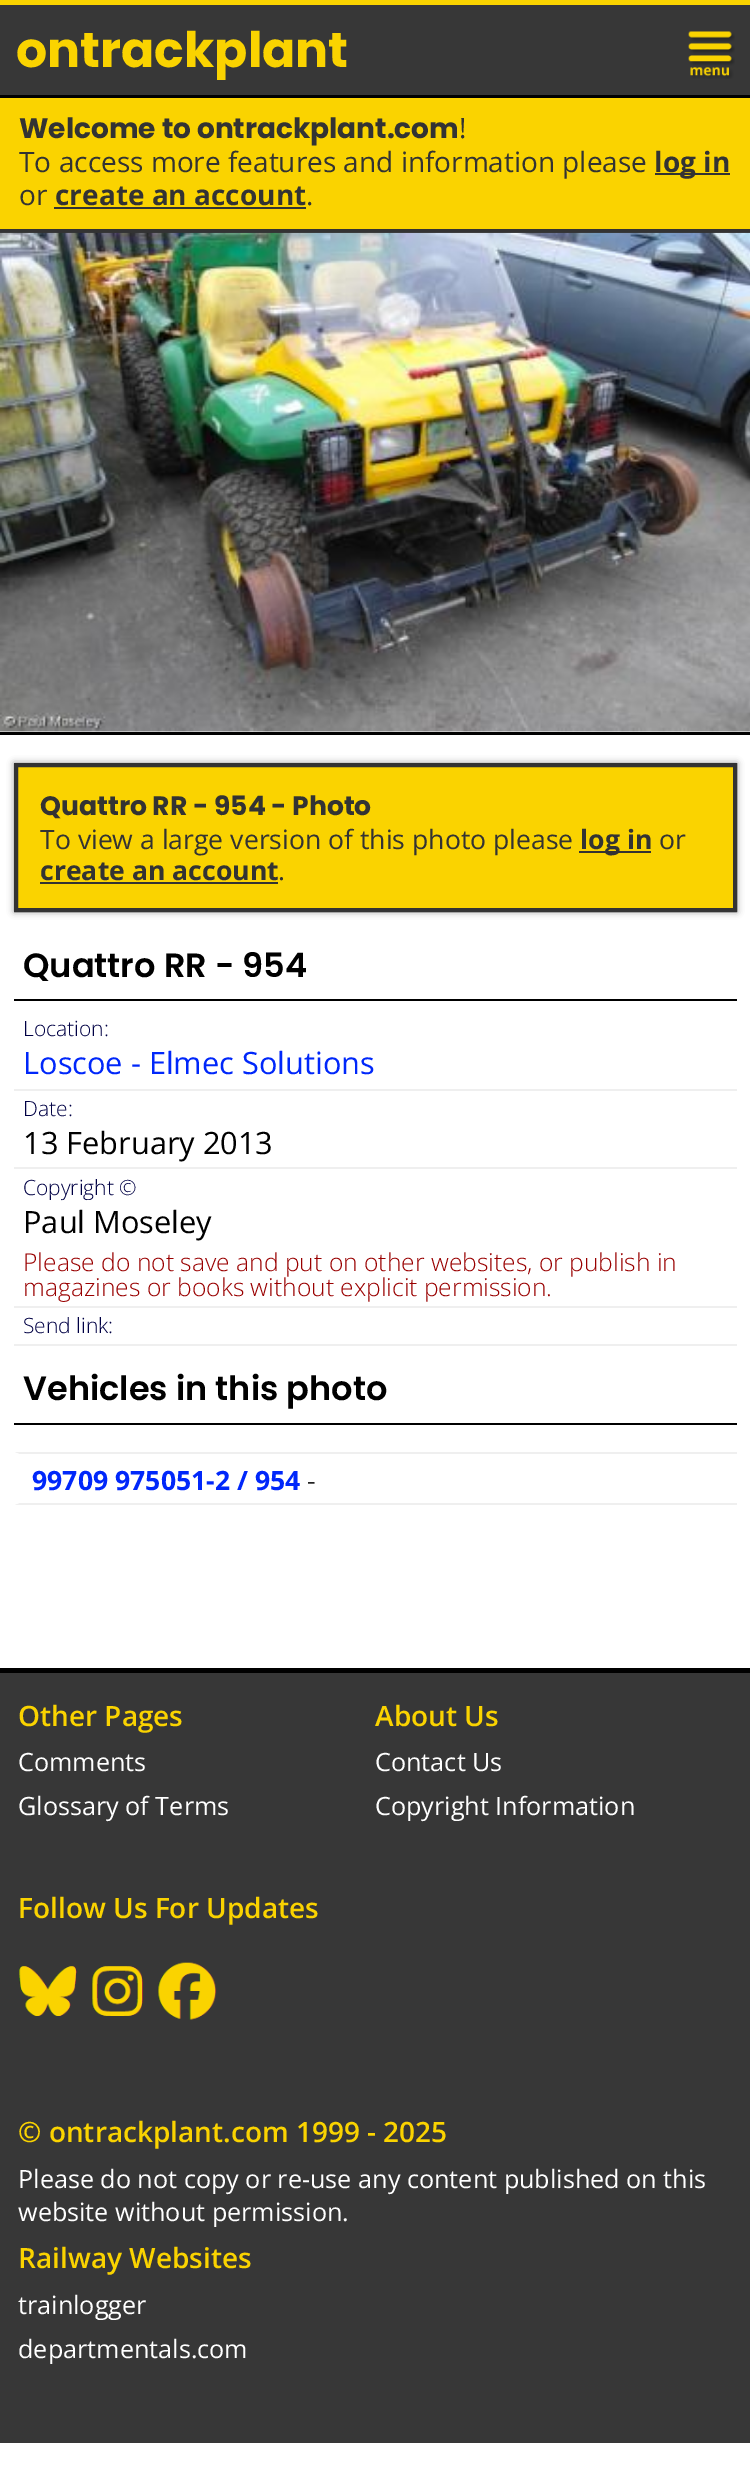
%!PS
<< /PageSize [750 2477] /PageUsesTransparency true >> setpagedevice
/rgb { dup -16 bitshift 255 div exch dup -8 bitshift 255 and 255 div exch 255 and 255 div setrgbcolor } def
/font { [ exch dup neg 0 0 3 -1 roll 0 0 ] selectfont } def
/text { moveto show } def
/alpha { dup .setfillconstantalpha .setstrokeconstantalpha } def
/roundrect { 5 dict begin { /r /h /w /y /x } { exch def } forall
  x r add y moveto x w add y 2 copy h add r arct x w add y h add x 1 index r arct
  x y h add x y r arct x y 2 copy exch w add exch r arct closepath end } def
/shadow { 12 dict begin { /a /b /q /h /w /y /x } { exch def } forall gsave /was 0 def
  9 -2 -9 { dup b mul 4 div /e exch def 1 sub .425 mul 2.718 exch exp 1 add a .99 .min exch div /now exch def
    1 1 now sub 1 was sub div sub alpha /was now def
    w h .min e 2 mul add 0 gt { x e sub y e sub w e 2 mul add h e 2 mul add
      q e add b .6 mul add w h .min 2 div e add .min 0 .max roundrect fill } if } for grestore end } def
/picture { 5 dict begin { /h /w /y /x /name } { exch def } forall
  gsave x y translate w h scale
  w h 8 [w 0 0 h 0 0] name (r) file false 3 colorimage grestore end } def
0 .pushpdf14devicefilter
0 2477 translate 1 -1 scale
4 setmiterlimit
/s1 { /Poppins-Bold 49 font 16#FAD300 rgb } def
/s2 { /Poppins-Bold 28 font 16#333333 rgb } def
/s3 { /OpenSans-Regular 28 font 16#333333 rgb } def
/s4 { /OpenSans-Bold 28 font 16#333333 rgb } def
/s5 { /Poppins-Bold 26.6 font 16#333333 rgb } def
/s6 { /OpenSans-Regular 26.6 font 16#333333 rgb } def
/s7 { /OpenSans-Bold 26.6 font 16#333333 rgb } def
/s8 { /Poppins-SemiBold 33.6 font 16#000000 rgb } def
/s9 { /OpenSans-Light 21 font 16#000044 rgb } def
/s10 { /OpenSans-Regular 30.75 font 16#0027FA rgb } def
/s11 { /OpenSans-Regular 30.75 font 16#000000 rgb } def
/s12 { /OpenSans-Light 24.65 font 16#990000 rgb } def
/s13 { /OpenSans-Bold 26.6 font 16#0027FA rgb } def
/s14 { /OpenSans-Regular 26.6 font 16#222222 rgb } def
/s15 { /OpenSans-SemiBold 28 font 16#FAD300 rgb } def
/s16 { /OpenSans-Regular 25.2 font 16#FFFFFF rgb } def
16#FFFFFF rgb
0 0 750 2477 rectfill
16#373737 rgb
0 5 750 90 rectfill
16#FAD300 rgb
0 0 750 5 rectfill
16#000000 rgb
0 95 750 3 rectfill
s1
(ontrackplant) 16 67 text
(pic1.raw) 688 31 47 48 picture
0 98 750 131 rectfill
16#333333 rgb
0 229 750 4 rectfill
s2
(Welcome to ontrackplant.com) 19 138 text
s3
(!) 459 138 text
(To access more features and information please) 19 172 text
655 173 75 2 rectfill
s4
(log in) 654 172 text
s3
(or) 19 205 text
s4
(create an account) 55 205 text
54 207 252 2 rectfill
s3
(.) 306 205 text
16#000000 rgb
0 732 750 3 rectfill
(pic2.raw) 0 232 750 500 picture
16#999999 rgb
14 763 723 149 0 3.5 1 shadow
16#FAD300 rgb
16 765 moveto 735 765 lineto 735 910 lineto 16 910 lineto closepath gsave fill grestore
16#333333 rgb
4 setlinewidth
stroke
s5
(Quattro RR - 954 - Photo) 40 815 text
s6
(To view a large version of this photo please) 40 849 text
579 851 72 2 rectfill
s7
(log in) 580 849 text
s6
(or) 659 849 text
s7
(create an account) 40 880 text
40 882 238 2 rectfill
s6
(.) 278 880 text
16#000000 rgb
14 999 723 2 rectfill
s8
(Quattro RR - 954) 23 977 text
16#EFEFEF rgb
14 1089 723 2 rectfill
s9
(Location:) 23 1036 text
s10
(Loscoe - Elmec Solutions) 23 1074 text
16#EFEFEF rgb
14 1167 723 2 rectfill
s9
(Date:) 23 1116 text
s11
(13 February 2013) 23 1154 text
16#EFEFEF rgb
14 1306 723 2 rectfill
s9
(Copyright ©) 23 1195 text
s11
(Paul Moseley) 23 1233 text
s12
(Please do not save and put on other websites, or publish in) 23 1271 text
(magazines or books without explicit permission.) 23 1296 text
16#EFEFEF rgb
14 1344 723 2 rectfill
s9
(Send link:) 23 1333 text
16#000000 rgb
14 1423 723 2 rectfill
s8
(Vehicles in this photo) 23 1400 text
16#EFEFEF rgb
14 1452 moveto 737 1452 lineto 737 1454 lineto 19 1454 lineto closepath fill
737 1505 moveto 14 1505 lineto 19 1503 lineto 737 1503 lineto closepath fill
16#FFFFFF rgb
14 1505 moveto 14 1452 lineto 19 1454 lineto 19 1503 lineto closepath fill
s13
(99709 975051-2 / 954) 32 1490 text
s14
(-) 307 1490 text
16#373737 rgb
0 1673 750 770 rectfill
16#000000 rgb
0 1668 750 5 rectfill
s15
(Other Pages) 18 1726 text
s16
(Comments) 18 1771 text
(Glossary of Terms) 18 1815 text
s15
(About Us) 375 1726 text
s16
(Contact Us) 375 1771 text
(Copyright Information) 375 1815 text
s15
(Follow Us For Updates) 18 1918 text
(pic3.raw) 19 1966 58 50 picture
(pic4.raw) 91 1966 52 50 picture
(pic5.raw) 157 1962 60 58 picture
(© ontrackplant.com 1999 - 2025) 18 2142 text
s16
(Please do not copy or re-use any content published on this) 18 2188 text
(website without permission.) 18 2221 text
s15
(Railway Websites) 18 2268 text
s16
(trainlogger) 18 2314 text
(departmentals.com) 18 2358 text
.poppdf14devicefilter showpage
